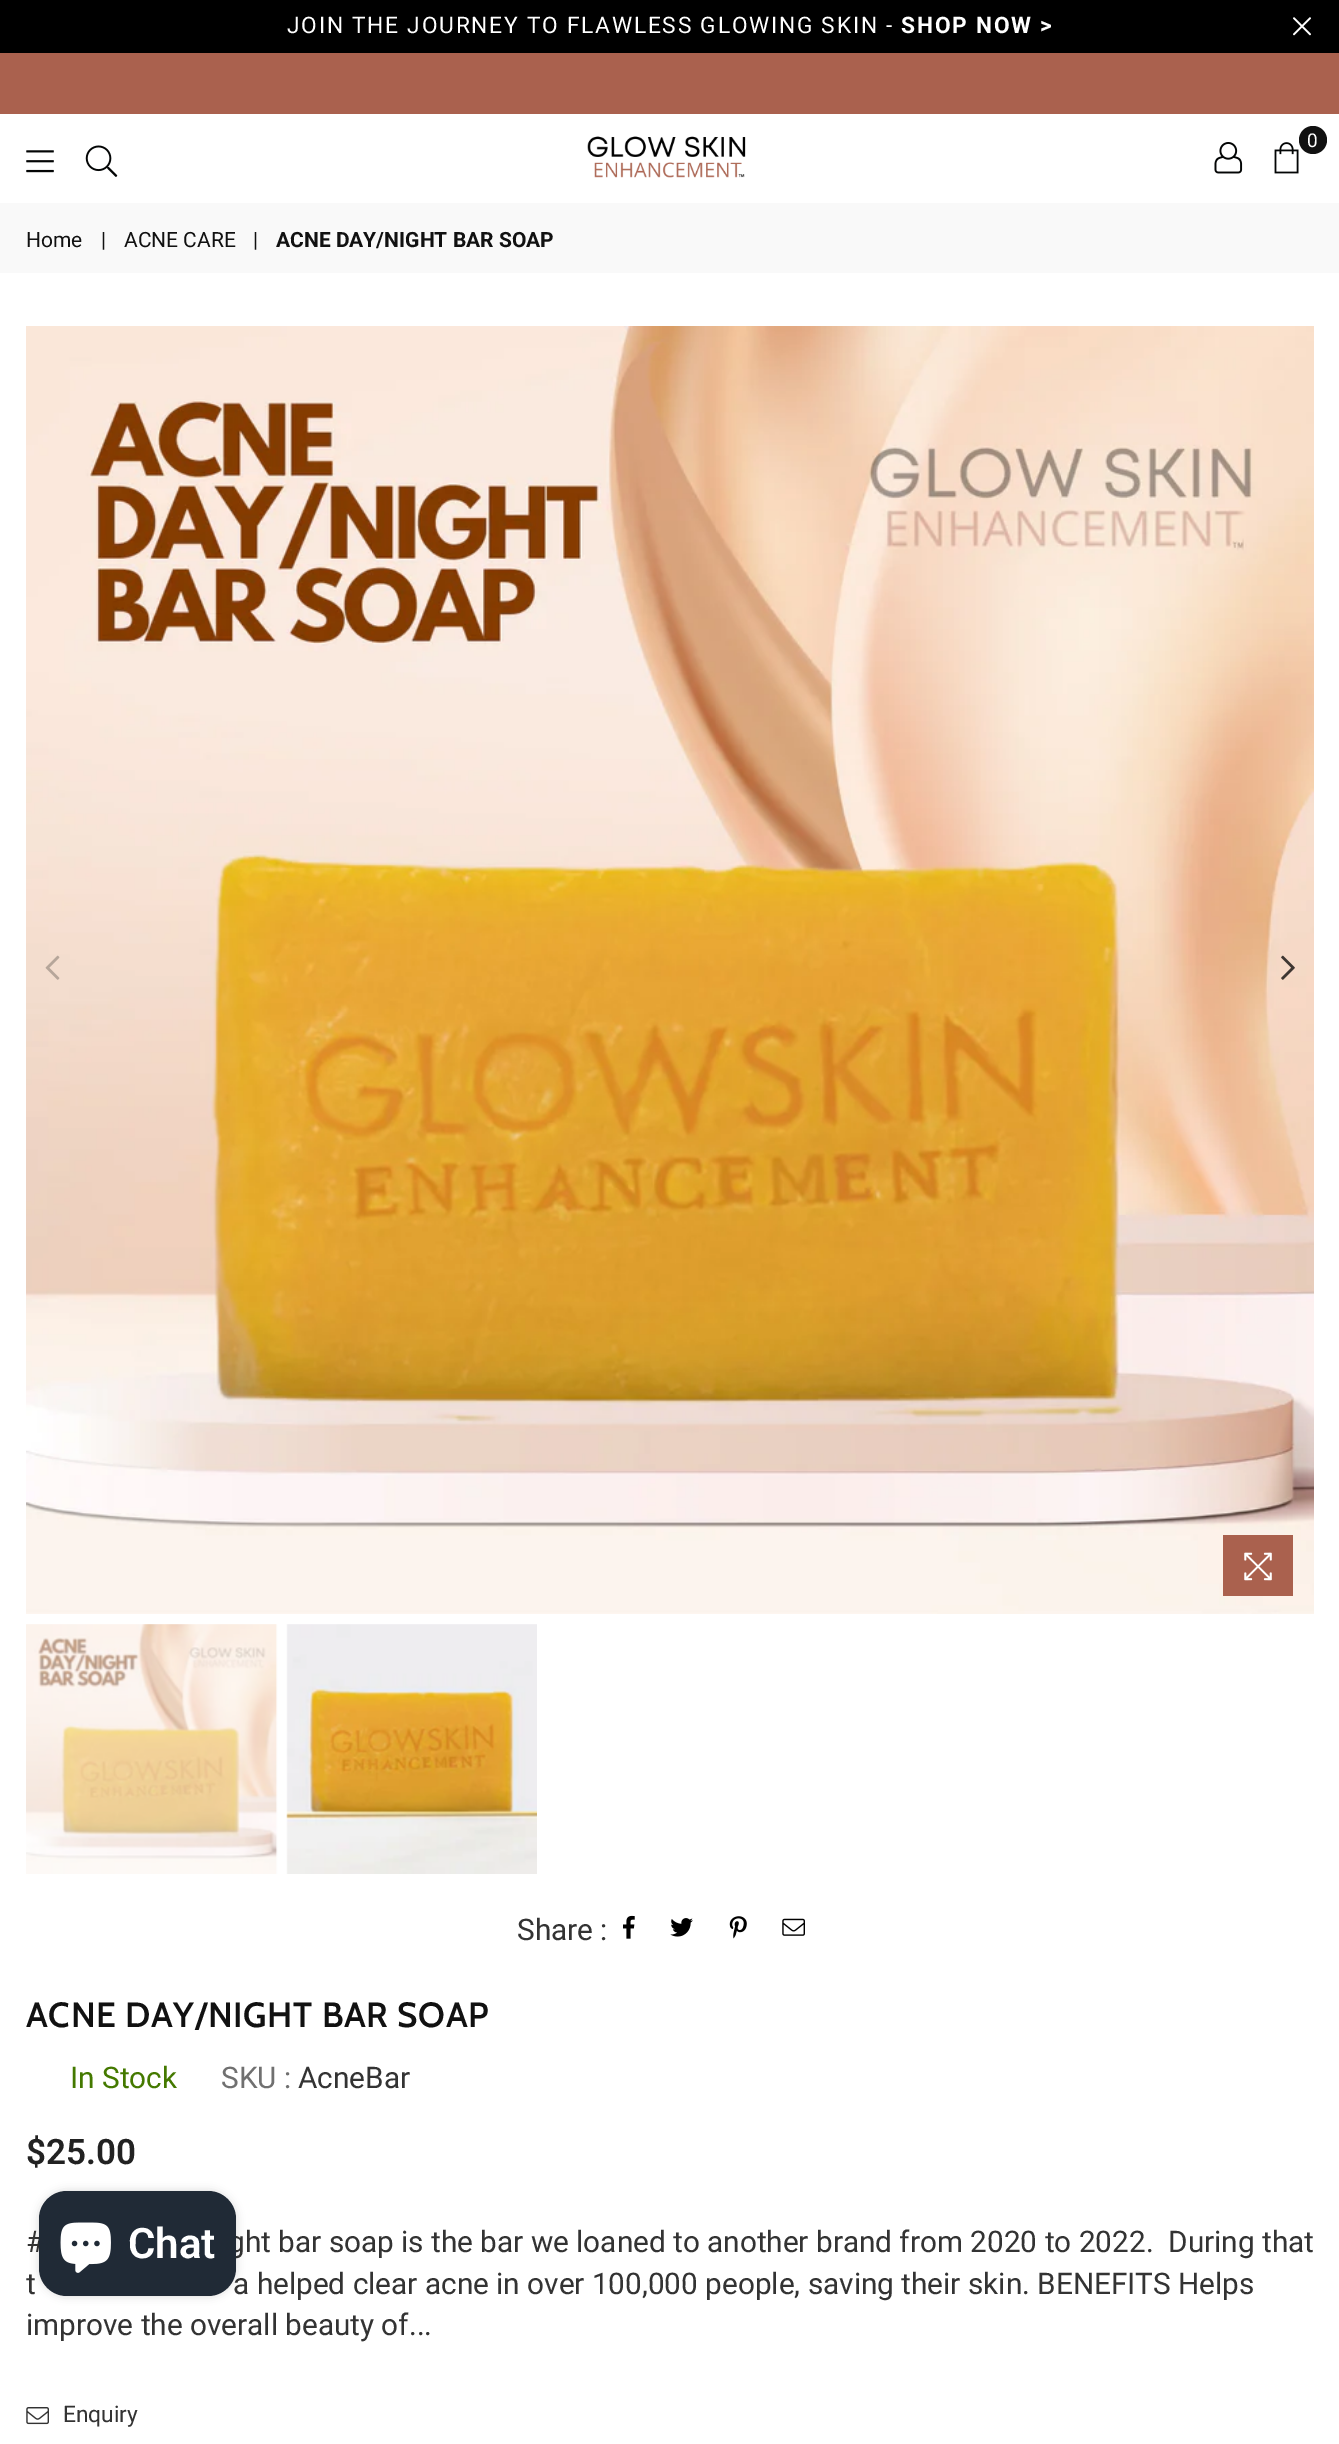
%!PS
<< /PageSize [1339 2444] /PageUsesTransparency true >> setpagedevice
/rgb { dup -16 bitshift 255 div exch dup -8 bitshift 255 and 255 div exch 255 and 255 div setrgbcolor } def
/font { [ exch dup neg 0 0 3 -1 roll 0 0 ] selectfont } def
/text { moveto show } def
/alpha { dup .setfillconstantalpha .setstrokeconstantalpha } def
/circle { newpath 0 360 arc closepath } def
/roundrect { 5 dict begin { /r /h /w /y /x } { exch def } forall
  x r add y moveto x w add y 2 copy h add r arct x w add y h add x 1 index r arct
  x y h add x y r arct x y 2 copy exch w add exch r arct closepath end } def
/shadow { 12 dict begin { /a /b /q /h /w /y /x } { exch def } forall gsave /was 0 def
  9 -2 -9 { dup b mul 4 div /e exch def 1 sub .425 mul 2.718 exch exp 1 add a .99 .min exch div /now exch def
    1 1 now sub 1 was sub div sub alpha /was now def
    w h .min e 2 mul add 0 gt { x e sub y e sub w e 2 mul add h e 2 mul add
      q e add b .6 mul add w h .min 2 div e add .min 0 .max roundrect fill } if } for grestore end } def
/picture { 5 dict begin { /h /w /y /x /name } { exch def } forall
  gsave x y translate w h scale
  w h 8 [w 0 0 h 0 0] name (r) file false 3 colorimage grestore end } def
0 .pushpdf14devicefilter
0 2444 translate 1 -1 scale
4 setmiterlimit
/s1 { /Roboto-Regular 19 font 16#FFFFFF rgb } def
/s2 { /Roboto-Regular 21 font 16#111111 rgb } def
/s3 { /Roboto-Bold 21 font 16#111111 rgb } def
/s4 { /Roboto-Regular 29.75 font 16#333333 rgb } def
/s5 { /Roboto-Regular 29.75 font 16#447900 rgb } def
/s6 { /Roboto-Regular 29.75 font 16#707070 rgb } def
/s7 { /Roboto-SemiBold 35 font 16#222222 rgb } def
/s8 { /Roboto-Regular 22.75 font 16#333333 rgb } def
/s9 { /Roboto-SemiBold 42 font 16#FFFFFF rgb } def
16#FFFFFF rgb
0 0 1339 2444 rectfill
16#000000 rgb
0 0 1339 53 rectfill
/Roboto-Regular 22.75 font
16#FFFFFF rgb
287 33 moveto 1.75 0 (JOIN THE JOURNEY TO FLAWLESS GLOWING SKIN -) ashow
/Roboto-Bold 22.75 font
901 33 moveto 1.75 0 (SHOP NOW >) ashow
(pic1.raw) 1293 17 18 19 picture
16#AA614E rgb
0 53 1339 61 rectfill
(pic2.raw) 26 150 28 23 picture
(pic3.raw) 85 145 33 32 picture
(pic4.raw) 587 136 159 42 picture
16#111111 rgb
1313 140 14 circle fill
s1
(0) 1307 147 text
(pic5.raw) 1274 142 25 32 picture
(pic6.raw) 1214 142 29 32 picture
16#F9F9F9 rgb
0 203 1339 70 rectfill
s2
(Home) 26 247 text
(|) 101 247 text
(ACNE CARE) 124 247 text
(|) 253 247 text
s3
(ACNE DAY/NIGHT BAR SOAP) 276 247 text
(pic7.raw) 26 326 1288 1288 picture
(pic8.raw) 45 955 15 25 picture
(pic9.raw) 1281 955 14 25 picture
16#AA614E rgb
1223 1535 70 61 rectfill
(pic10.raw) 1244 1552 28 29 picture
(pic11.raw) 26 1624 252 250 picture
(pic12.raw) 286 1624 251 250 picture
s4
(Share :) 517 1940 text
(pic13.raw) 623 1915 12 24 picture
(pic14.raw) 670 1918 23 19 picture
(pic15.raw) 729 1916 18 23 picture
(pic16.raw) 782 1918 23 18 picture
/Cabin-SemiBold 35 font
16#111111 rgb
26 2027 moveto 0.7 0 (ACNE DAY/NIGHT BAR SOAP) ashow
s5
(In Stock) 70 2088 text
s6
(SKU :) 221 2088 text
s4
(AcneBar) 298 2088 text
s7
($25.00) 26 2164 text
s4
(#) 26 2252 text
(ght bar soap is the bar we loaned to another brand from 2020 to 2022.  During that) 228 2252 text
(t) 26 2294 text
(a helped clear acne in over 100,000 people, saving their skin. BENEFITS Helps) 233 2294 text
(improve the overall beauty of...) 26 2335 text
(pic17.raw) 26 2407 23 18 picture
s8
(Enquiry) 63 2422 text
16#000000 rgb
39 2191 197 105 28 4.5 0.15 shadow
16#202A36 rgb
39 2191 197 105 28 roundrect fill
(pic18.raw) 60 2222 51 51 picture
s9
(Chat) 128 2258 text
.poppdf14devicefilter showpage
